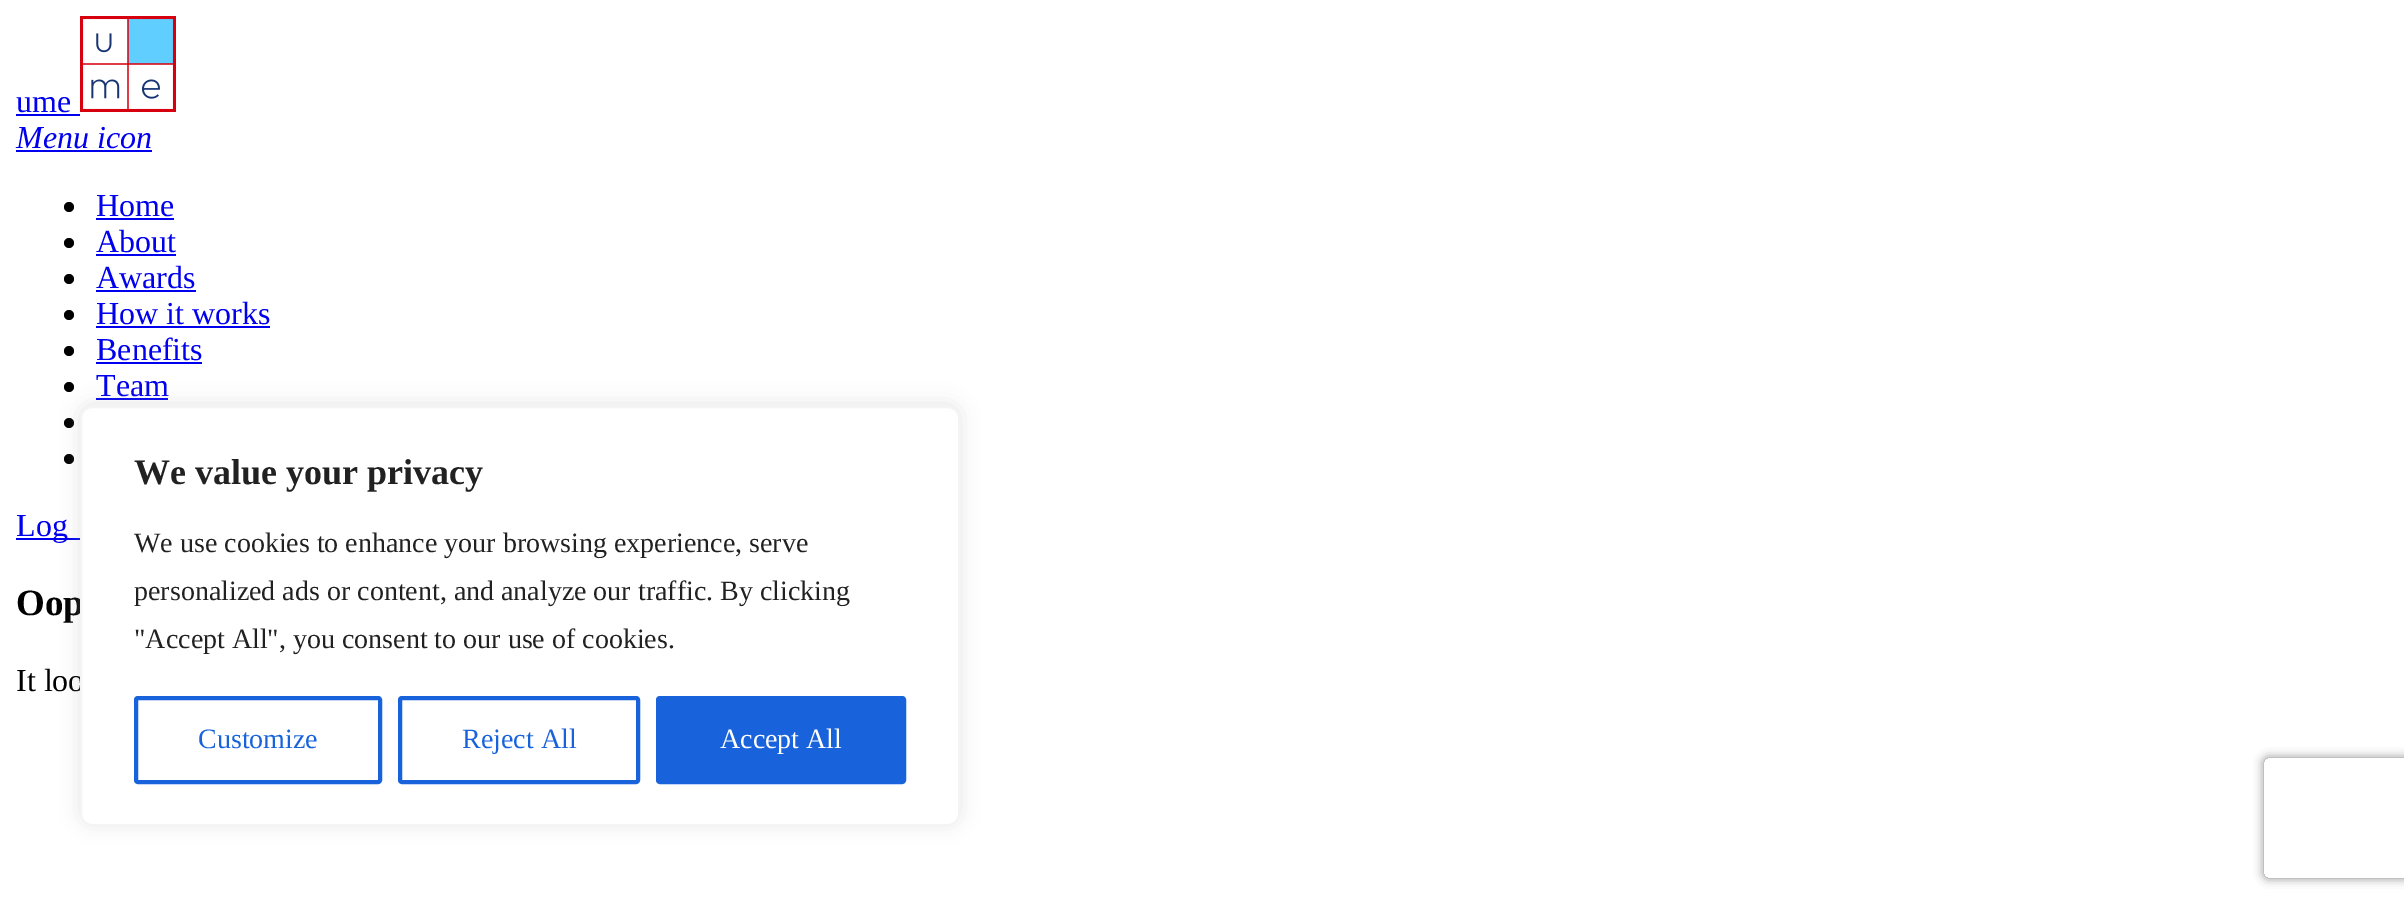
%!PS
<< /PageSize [2404 906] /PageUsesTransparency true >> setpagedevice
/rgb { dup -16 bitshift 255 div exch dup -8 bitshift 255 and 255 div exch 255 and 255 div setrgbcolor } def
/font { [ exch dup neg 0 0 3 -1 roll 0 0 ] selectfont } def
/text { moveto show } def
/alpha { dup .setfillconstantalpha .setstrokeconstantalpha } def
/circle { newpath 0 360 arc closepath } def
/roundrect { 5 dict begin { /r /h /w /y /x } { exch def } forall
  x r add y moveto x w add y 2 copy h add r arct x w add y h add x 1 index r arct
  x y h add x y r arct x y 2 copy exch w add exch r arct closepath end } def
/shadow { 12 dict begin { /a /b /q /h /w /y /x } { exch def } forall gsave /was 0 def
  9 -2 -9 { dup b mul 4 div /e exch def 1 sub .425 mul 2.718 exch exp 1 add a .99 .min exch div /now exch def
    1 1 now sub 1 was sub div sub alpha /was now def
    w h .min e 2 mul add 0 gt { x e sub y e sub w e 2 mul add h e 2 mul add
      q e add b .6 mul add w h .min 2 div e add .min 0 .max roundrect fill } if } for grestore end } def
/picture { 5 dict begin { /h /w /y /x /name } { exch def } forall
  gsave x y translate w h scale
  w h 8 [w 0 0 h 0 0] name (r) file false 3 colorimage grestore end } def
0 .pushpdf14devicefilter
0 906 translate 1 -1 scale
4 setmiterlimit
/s1 { /LiberationSerif-Regular 32 font 16#0000EE rgb } def
/s2 { /LiberationSerif-Italic 32 font 16#0000EE rgb } def
/s3 { /LiberationSerif-Bold 37 font 16#000000 rgb } def
/s4 { /LiberationSerif-Regular 32 font 16#000000 rgb } def
/s5 { /LiberationSerif-Bold 36 font 16#212121 rgb } def
/s6 { /LiberationSerif-Regular 28 font 16#212121 rgb } def
/s7 { /LiberationSerif-Regular 28 font 16#1863DC rgb } def
/s8 { /LiberationSerif-Regular 28 font 16#FFFFFF rgb } def
16#FFFFFF rgb
0 0 2404 906 rectfill
s1
(ume) 16 112 text
16 114 64 2 rectfill
(pic1.raw) 80 16 96 96 picture
s2
(Menu icon) 16 148 text
16 150 136 2 rectfill
16#000000 rgb
69 207 5 circle fill
s1
(Home) 96 216 text
96 218 78 2 rectfill
16#000000 rgb
69 243 5 circle fill
s1
(About) 96 252 text
96 254 80 2 rectfill
16#000000 rgb
69 279 5 circle fill
s1
(Awards) 96 288 text
96 290 100 2 rectfill
16#000000 rgb
69 315 5 circle fill
s1
(How it works) 96 324 text
96 326 174 2 rectfill
16#000000 rgb
69 351 5 circle fill
s1
(Benefits) 96 360 text
96 362 106 2 rectfill
16#000000 rgb
69 387 5 circle fill
s1
(Team) 96 396 text
96 398 72 2 rectfill
16#000000 rgb
69 423 5 circle fill
69 459 5 circle fill
16#0000EE rgb
16 538 64 2 rectfill
(Log) 16 536 text
s3
(Oop) 16 615 text
s4
(It loo) 16 691 text
16#ACABAB rgb
80 404 880 420 12 10 0.3 shadow
16#FFFFFF rgb
81 407 878 418 11 roundrect gsave fill grestore
16#F4F4F4 rgb
2 setlinewidth
stroke
s5
(We value your privacy) 134 484 text
s6
(We use cookies to enhance your browsing experience, serve) 134 552 text
(personalized ads or content, and analyze our traffic. By clicking) 134 600 text
("Accept All", you consent to our use of cookies.) 134 648 text
16#1863DC rgb
4 setlinewidth
136 698 244 84 2 roundrect stroke
(Customize) 198 748 text
400 698 238 84 2 roundrect stroke
(Reject All) 462 748 text
658 698 246 84 2 roundrect gsave fill grestore
stroke
s8
(Accept All) 720 748 text
gsave
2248 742 moveto 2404 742 lineto 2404 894 lineto 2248 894 lineto closepath 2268 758 moveto 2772 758 lineto 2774 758 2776 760 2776 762 curveto 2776 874 lineto 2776 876 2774 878 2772 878 curveto 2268 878 lineto 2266 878 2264 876 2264 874 curveto 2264 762 lineto 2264 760 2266 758 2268 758 curveto closepath eoclip newpath
16#808080 rgb
2264 758 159 120 4 5 1 shadow
grestore
.poppdf14devicefilter showpage
